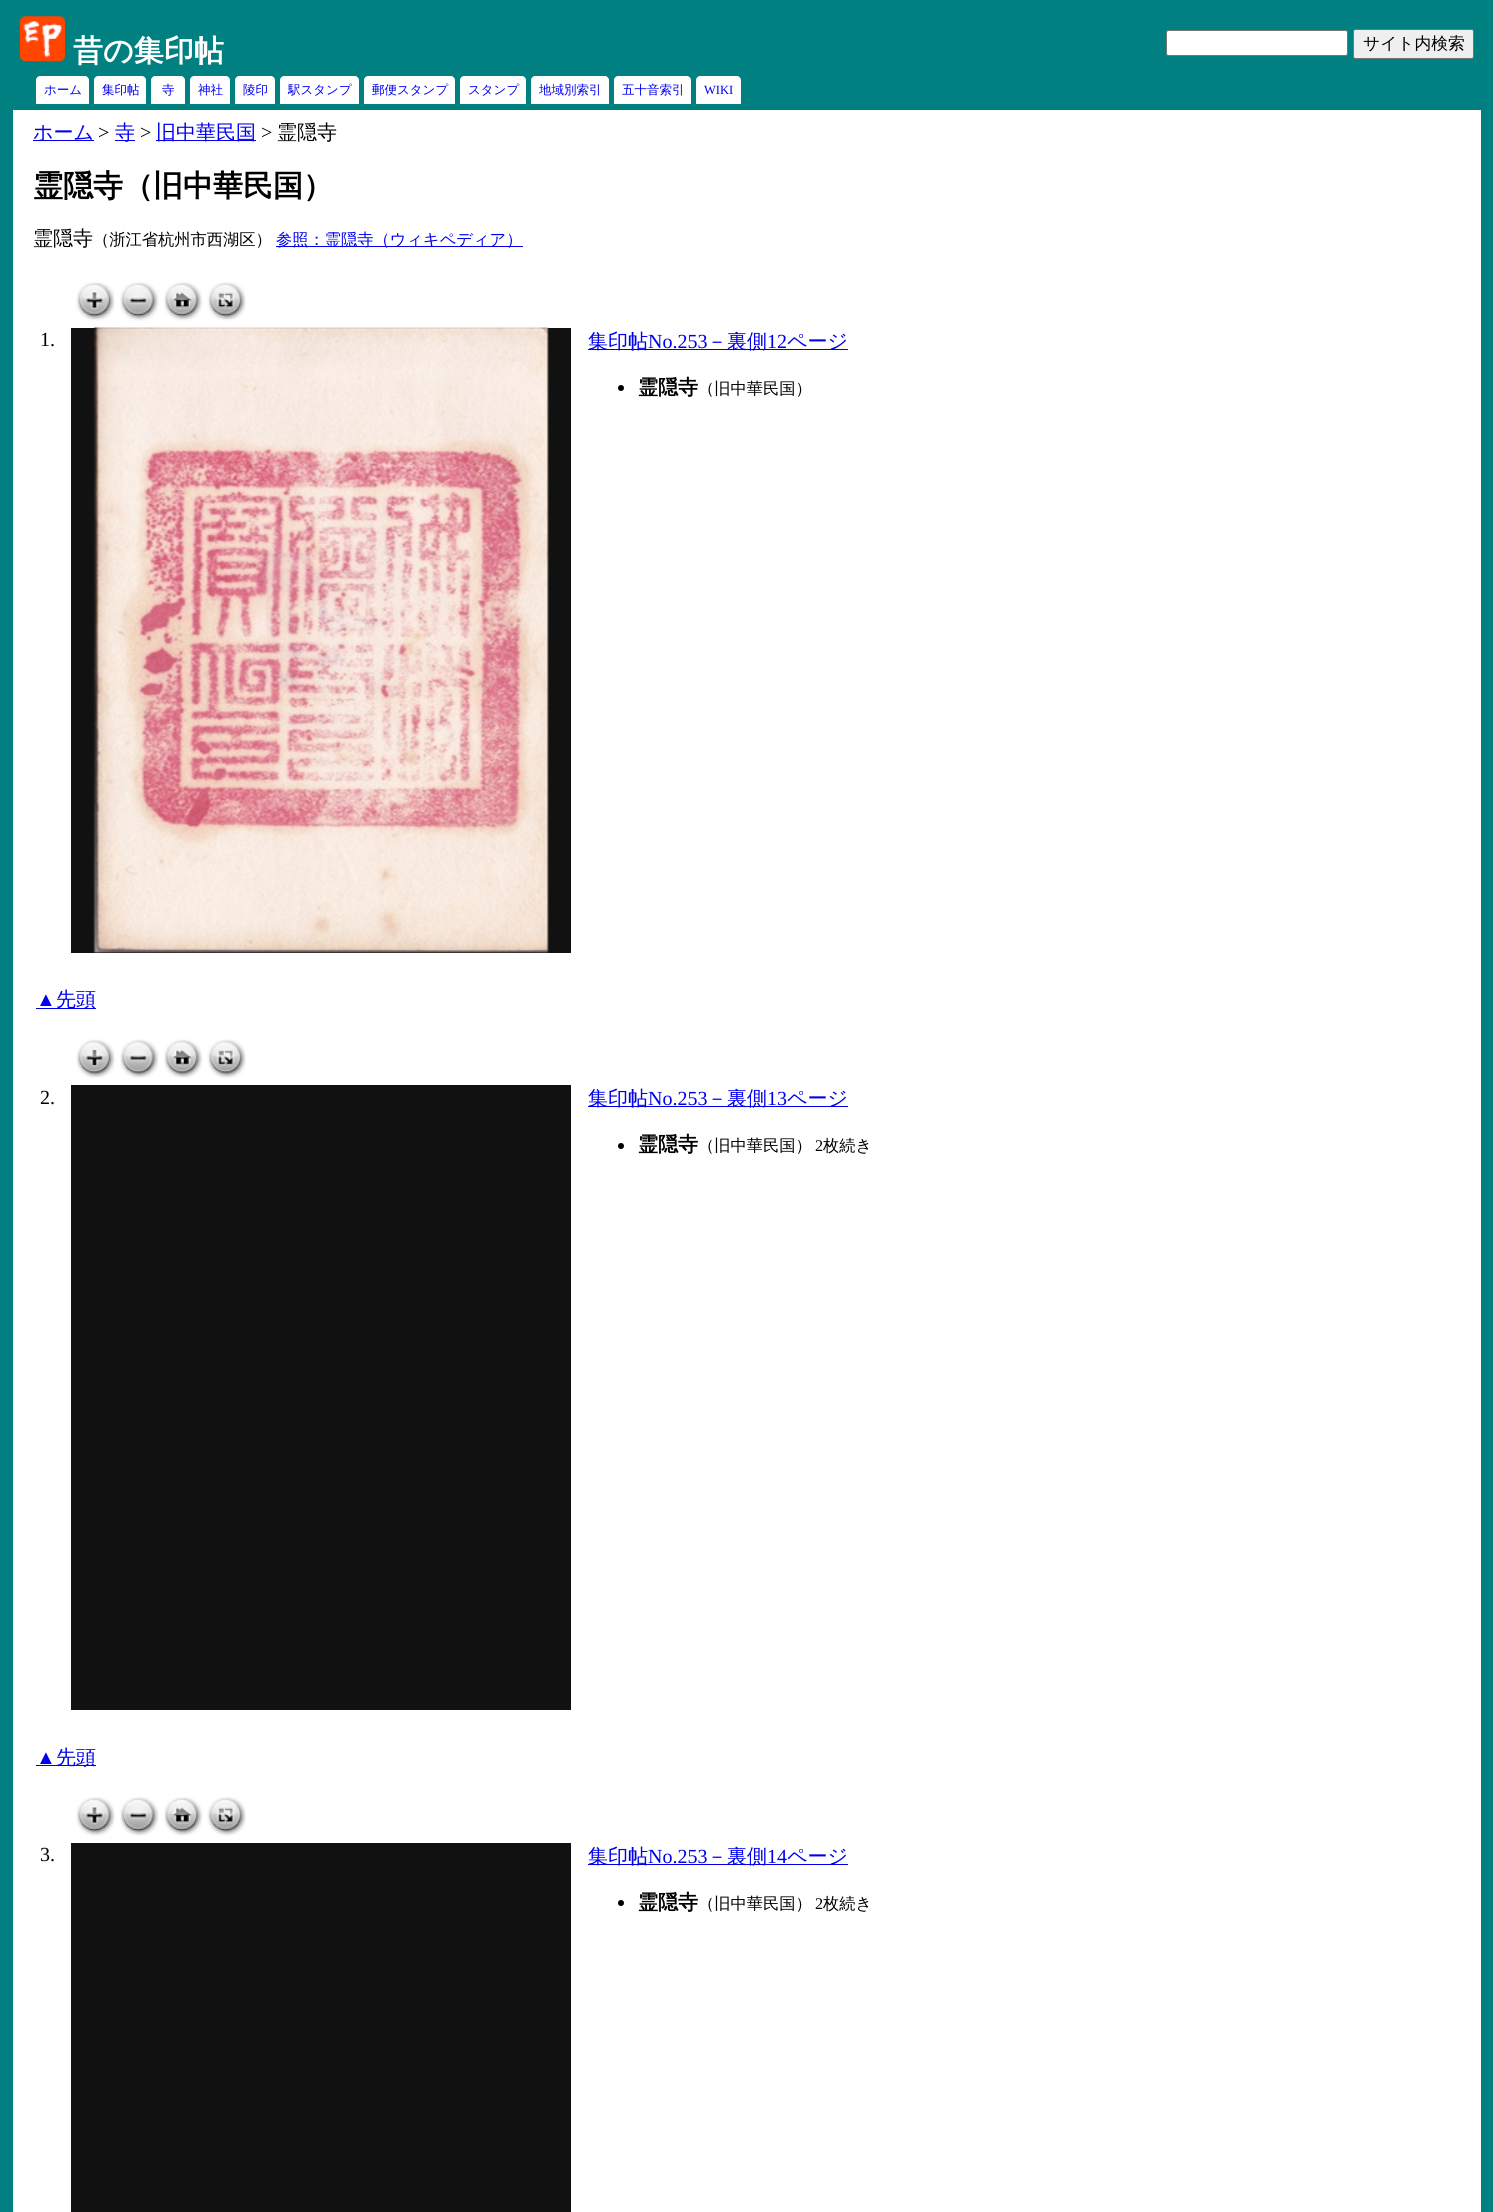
import math
import cairo

surface = cairo.ImageSurface(cairo.FORMAT_RGB24, 1493, 2212)
ctx = cairo.Context(surface)
options = cairo.FontOptions()
options.set_hint_metrics(cairo.HINT_METRICS_OFF)
options.set_hint_style(cairo.HINT_STYLE_NONE)
ctx.set_font_options(options)
ctx.set_miter_limit(4)


def set_color(code):
    ctx.set_source_rgb(*(v / 255 for v in bytes.fromhex(code[-6:])))


def draw_text(x, y, s, family, size, color, bold=False, italic=False):
    ctx.select_font_face(family, cairo.FONT_SLANT_ITALIC if italic else cairo.FONT_SLANT_NORMAL, cairo.FONT_WEIGHT_BOLD if bold else cairo.FONT_WEIGHT_NORMAL)
    ctx.set_font_size(size)
    set_color(color)
    ctx.move_to(x, y)
    ctx.show_text(s)


def fill_rect(x, y, w, h, color):
    set_color(color)
    ctx.rectangle(x, y, w, h)
    ctx.fill()


def rounded_rect(x, y, w, h, r):
    ctx.new_sub_path()
    for i, (u, v) in enumerate([(x + w - r, y + h - r), (x + r, y + h - r), (x + r, y + r), (x + w - r, y + r)]):
        ctx.arc(u, v, r, i * math.pi / 2, (i + 1) * math.pi / 2)
    ctx.close_path()


def draw_image(path, x, y, w, h):
    ctx.save()
    ctx.set_source_surface(cairo.ImageSurface.create_from_png(path), x, y)
    ctx.rectangle(x, y, w, h)
    ctx.fill()
    ctx.restore()


set_color("#008080")
ctx.paint()
draw_image("assets/img1.png", 20, 16, 45, 46)
draw_text(73, 61, "昔の集印帖", "WenQuanYi Zen Hei", 30, "#ffffff", bold=True)
rounded_rect(1166.5, 30.5, 181, 25, 2)
ctx.fill_preserve()
set_color("#767676")
ctx.set_line_width(1)
ctx.stroke()
set_color("#efefef")
rounded_rect(1353.5, 29.5, 120, 29, 2)
ctx.fill_preserve()
set_color("#767676")
ctx.stroke()
draw_text(1363, 49, "サイト内検索", "WenQuanYi Zen Hei Medium", 16.75, "#000000")
set_color("#ffffff")
ctx.new_path()
ctx.move_to(40, 76)
ctx.line_to(85, 76)
ctx.curve_to(87, 76, 89, 78, 89, 80)
ctx.line_to(89, 104)
ctx.line_to(36, 104)
ctx.line_to(36, 80)
ctx.curve_to(36, 78, 38, 76, 40, 76)
ctx.close_path()
ctx.fill()
draw_text(44, 94, "ホーム", "WenQuanYi Zen Hei Medium", 12.5, "#0000ee")
set_color("#ffffff")
ctx.new_path()
ctx.move_to(98, 76)
ctx.line_to(142, 76)
ctx.curve_to(144, 76, 146, 78, 146, 80)
ctx.line_to(146, 104)
ctx.line_to(94, 104)
ctx.line_to(94, 80)
ctx.curve_to(94, 78, 96, 76, 98, 76)
ctx.close_path()
ctx.fill()
draw_text(102, 94, "集印帖", "WenQuanYi Zen Hei Medium", 12.5, "#0000ee")
set_color("#ffffff")
ctx.new_path()
ctx.move_to(155, 76)
ctx.line_to(181, 76)
ctx.curve_to(183, 76, 185, 78, 185, 80)
ctx.line_to(185, 104)
ctx.line_to(151, 104)
ctx.line_to(151, 80)
ctx.curve_to(151, 78, 153, 76, 155, 76)
ctx.close_path()
ctx.fill()
draw_text(162, 94, "寺", "WenQuanYi Zen Hei Medium", 12.5, "#0000ee")
set_color("#ffffff")
ctx.new_path()
ctx.move_to(194, 76)
ctx.line_to(226, 76)
ctx.curve_to(228, 76, 230, 78, 230, 80)
ctx.line_to(230, 104)
ctx.line_to(190, 104)
ctx.line_to(190, 80)
ctx.curve_to(190, 78, 192, 76, 194, 76)
ctx.close_path()
ctx.fill()
draw_text(198, 94, "神社", "WenQuanYi Zen Hei Medium", 12.5, "#0000ee")
set_color("#ffffff")
ctx.new_path()
ctx.move_to(239, 76)
ctx.line_to(271, 76)
ctx.curve_to(273, 76, 275, 78, 275, 80)
ctx.line_to(275, 104)
ctx.line_to(235, 104)
ctx.line_to(235, 80)
ctx.curve_to(235, 78, 237, 76, 239, 76)
ctx.close_path()
ctx.fill()
draw_text(243, 94, "陵印", "WenQuanYi Zen Hei Medium", 12.5, "#0000ee")
set_color("#ffffff")
ctx.new_path()
ctx.move_to(284, 76)
ctx.line_to(355, 76)
ctx.curve_to(357, 76, 359, 78, 359, 80)
ctx.line_to(359, 104)
ctx.line_to(280, 104)
ctx.line_to(280, 80)
ctx.curve_to(280, 78, 282, 76, 284, 76)
ctx.close_path()
ctx.fill()
draw_text(288, 94, "駅スタンプ", "WenQuanYi Zen Hei Medium", 12.5, "#0000ee")
set_color("#ffffff")
ctx.new_path()
ctx.move_to(368, 76)
ctx.line_to(451, 76)
ctx.curve_to(453, 76, 455, 78, 455, 80)
ctx.line_to(455, 104)
ctx.line_to(364, 104)
ctx.line_to(364, 80)
ctx.curve_to(364, 78, 366, 76, 368, 76)
ctx.close_path()
ctx.fill()
draw_text(372, 94, "郵便スタンプ", "WenQuanYi Zen Hei Medium", 12.5, "#0000ee")
set_color("#ffffff")
ctx.new_path()
ctx.move_to(464, 76)
ctx.line_to(522, 76)
ctx.curve_to(524, 76, 526, 78, 526, 80)
ctx.line_to(526, 104)
ctx.line_to(460, 104)
ctx.line_to(460, 80)
ctx.curve_to(460, 78, 462, 76, 464, 76)
ctx.close_path()
ctx.fill()
draw_text(468, 94, "スタンプ", "WenQuanYi Zen Hei Medium", 12.5, "#0000ee")
set_color("#ffffff")
ctx.new_path()
ctx.move_to(535, 76)
ctx.line_to(605, 76)
ctx.curve_to(607, 76, 609, 78, 609, 80)
ctx.line_to(609, 104)
ctx.line_to(531, 104)
ctx.line_to(531, 80)
ctx.curve_to(531, 78, 533, 76, 535, 76)
ctx.close_path()
ctx.fill()
draw_text(539, 94, "地域別索引", "WenQuanYi Zen Hei Medium", 12.5, "#0000ee")
set_color("#ffffff")
ctx.new_path()
ctx.move_to(618, 76)
ctx.line_to(687, 76)
ctx.curve_to(689, 76, 691, 78, 691, 80)
ctx.line_to(691, 104)
ctx.line_to(614, 104)
ctx.line_to(614, 80)
ctx.curve_to(614, 78, 616, 76, 618, 76)
ctx.close_path()
ctx.fill()
draw_text(622, 94, "五十音索引", "WenQuanYi Zen Hei Medium", 12.5, "#0000ee")
set_color("#ffffff")
ctx.new_path()
ctx.move_to(700, 76)
ctx.line_to(737, 76)
ctx.curve_to(739, 76, 741, 78, 741, 80)
ctx.line_to(741, 104)
ctx.line_to(696, 104)
ctx.line_to(696, 80)
ctx.curve_to(696, 78, 698, 76, 700, 76)
ctx.close_path()
ctx.fill()
draw_text(704, 94, "WIKI", "Liberation Serif", 12.5, "#0000ee")
fill_rect(13, 110, 1468, 2102, "#ffffff")
fill_rect(33, 140, 61, 1, "#0000ee")
draw_text(33, 139, "ホーム", "WenQuanYi Zen Hei Medium", 20, "#0000ee")
draw_text(98, 139, ">", "Liberation Serif", 20, "#000000")
fill_rect(115, 140, 20, 1, "#0000ee")
draw_text(115, 139, "寺", "WenQuanYi Zen Hei Medium", 20, "#0000ee")
draw_text(140, 139, ">", "Liberation Serif", 20, "#000000")
fill_rect(156, 140, 100, 1, "#0000ee")
draw_text(156, 139, "旧中華民国", "WenQuanYi Zen Hei Medium", 20, "#0000ee")
draw_text(261, 139, ">", "Liberation Serif", 20, "#000000")
draw_text(277, 139, "霊隠寺", "WenQuanYi Zen Hei Medium", 20, "#000000")
draw_text(33, 196, "霊隠寺（旧中華民国）", "WenQuanYi Zen Hei", 30, "#000000", bold=True)
draw_text(33, 245, "霊隠寺", "WenQuanYi Zen Hei Medium", 20, "#000000")
draw_text(93, 245, "（浙江省杭州市西湖区）", "WenQuanYi Zen Hei Medium", 16.25, "#000000")
fill_rect(276, 246, 247, 1, "#0000ee")
draw_text(276, 245, "参照：霊隠寺（ウィキペディア）", "WenQuanYi Zen Hei Medium", 16.25, "#0000ee")
draw_image("assets/img2.png", 76, 282, 39, 39)
draw_image("assets/img3.png", 77, 283, 37, 36)
draw_image("assets/img4.png", 120, 282, 39, 39)
draw_image("assets/img5.png", 121, 283, 37, 36)
draw_image("assets/img6.png", 164, 282, 39, 39)
draw_image("assets/img7.png", 165, 283, 36, 36)
draw_image("assets/img8.png", 207, 282, 39, 39)
draw_image("assets/img9.png", 209, 283, 36, 36)
draw_text(40, 346, "1.", "Liberation Serif", 20, "#000000")
fill_rect(71, 328, 500, 625, "#111111")
draw_image("assets/img10.png", 93, 327, 456, 626)
fill_rect(588, 349, 260, 1, "#0000ee")
draw_text(588, 348, "集印帖", "WenQuanYi Zen Hei Medium", 20, "#0000ee")
draw_text(648, 348, "No.253", "Liberation Serif", 20, "#0000ee")
draw_text(707, 348, "－裏側", "WenQuanYi Zen Hei Medium", 20, "#0000ee")
draw_text(767, 348, "12", "Liberation Serif", 20, "#0000ee")
draw_text(787, 348, "ページ", "WenQuanYi Zen Hei Medium", 20, "#0000ee")
set_color("#000000")
ctx.new_path()
ctx.arc(621, 388, 3, 0, 2 * math.pi)
ctx.fill()
draw_text(638, 394, "霊隠寺", "WenQuanYi Zen Hei", 20, "#000000", bold=True)
draw_text(698, 394, "（旧中華民国）", "WenQuanYi Zen Hei Medium", 16.25, "#000000")
draw_text(36, 1006, "▲", "Liberation Serif", 20, "#0000ee")
fill_rect(36, 1008, 60, 1, "#0000ee")
draw_text(56, 1006, "先頭", "WenQuanYi Zen Hei Medium", 20, "#0000ee")
draw_image("assets/img11.png", 76, 1039, 39, 39)
draw_image("assets/img12.png", 77, 1040, 37, 37)
draw_image("assets/img13.png", 120, 1039, 39, 39)
draw_image("assets/img14.png", 121, 1040, 37, 37)
draw_image("assets/img15.png", 164, 1039, 39, 39)
draw_image("assets/img16.png", 165, 1040, 37, 37)
draw_image("assets/img17.png", 207, 1039, 39, 39)
draw_image("assets/img18.png", 209, 1040, 36, 37)
draw_text(40, 1104, "2.", "Liberation Serif", 20, "#000000")
fill_rect(71, 1085, 500, 625, "#111111")
fill_rect(588, 1106, 260, 1, "#0000ee")
draw_text(588, 1105, "集印帖", "WenQuanYi Zen Hei Medium", 20, "#0000ee")
draw_text(648, 1105, "No.253", "Liberation Serif", 20, "#0000ee")
draw_text(707, 1105, "－裏側", "WenQuanYi Zen Hei Medium", 20, "#0000ee")
draw_text(767, 1105, "13", "Liberation Serif", 20, "#0000ee")
draw_text(787, 1105, "ページ", "WenQuanYi Zen Hei Medium", 20, "#0000ee")
set_color("#000000")
ctx.new_path()
ctx.arc(621, 1146, 3, 0, 2 * math.pi)
ctx.fill()
draw_text(638, 1151, "霊隠寺", "WenQuanYi Zen Hei", 20, "#000000", bold=True)
draw_text(698, 1151, "（旧中華民国）", "WenQuanYi Zen Hei Medium", 16.25, "#000000")
draw_text(815, 1151, "2", "Liberation Serif", 16.25, "#000000")
draw_text(823, 1151, "枚続き", "WenQuanYi Zen Hei Medium", 16.25, "#000000")
draw_text(36, 1764, "▲", "Liberation Serif", 20, "#0000ee")
fill_rect(36, 1765, 60, 1, "#0000ee")
draw_text(56, 1764, "先頭", "WenQuanYi Zen Hei Medium", 20, "#0000ee")
draw_image("assets/img19.png", 76, 1797, 39, 39)
draw_image("assets/img20.png", 77, 1798, 37, 37)
draw_image("assets/img21.png", 120, 1797, 39, 39)
draw_image("assets/img22.png", 121, 1798, 37, 37)
draw_image("assets/img23.png", 164, 1797, 39, 39)
draw_image("assets/img24.png", 165, 1798, 37, 37)
draw_image("assets/img25.png", 207, 1797, 39, 39)
draw_image("assets/img26.png", 208, 1798, 37, 37)
draw_text(40, 1861, "3.", "Liberation Serif", 20, "#000000")
fill_rect(71, 1843, 500, 369, "#111111")
fill_rect(588, 1864, 260, 1, "#0000ee")
draw_text(588, 1863, "集印帖", "WenQuanYi Zen Hei Medium", 20, "#0000ee")
draw_text(648, 1863, "No.253", "Liberation Serif", 20, "#0000ee")
draw_text(707, 1863, "－裏側", "WenQuanYi Zen Hei Medium", 20, "#0000ee")
draw_text(767, 1863, "14", "Liberation Serif", 20, "#0000ee")
draw_text(787, 1863, "ページ", "WenQuanYi Zen Hei Medium", 20, "#0000ee")
set_color("#000000")
ctx.new_path()
ctx.arc(621, 1903, 3, 0, 2 * math.pi)
ctx.fill()
draw_text(638, 1909, "霊隠寺", "WenQuanYi Zen Hei", 20, "#000000", bold=True)
draw_text(698, 1909, "（旧中華民国）", "WenQuanYi Zen Hei Medium", 16.25, "#000000")
draw_text(815, 1909, "2", "Liberation Serif", 16.25, "#000000")
draw_text(823, 1909, "枚続き", "WenQuanYi Zen Hei Medium", 16.25, "#000000")
surface.write_to_png("output.png")
